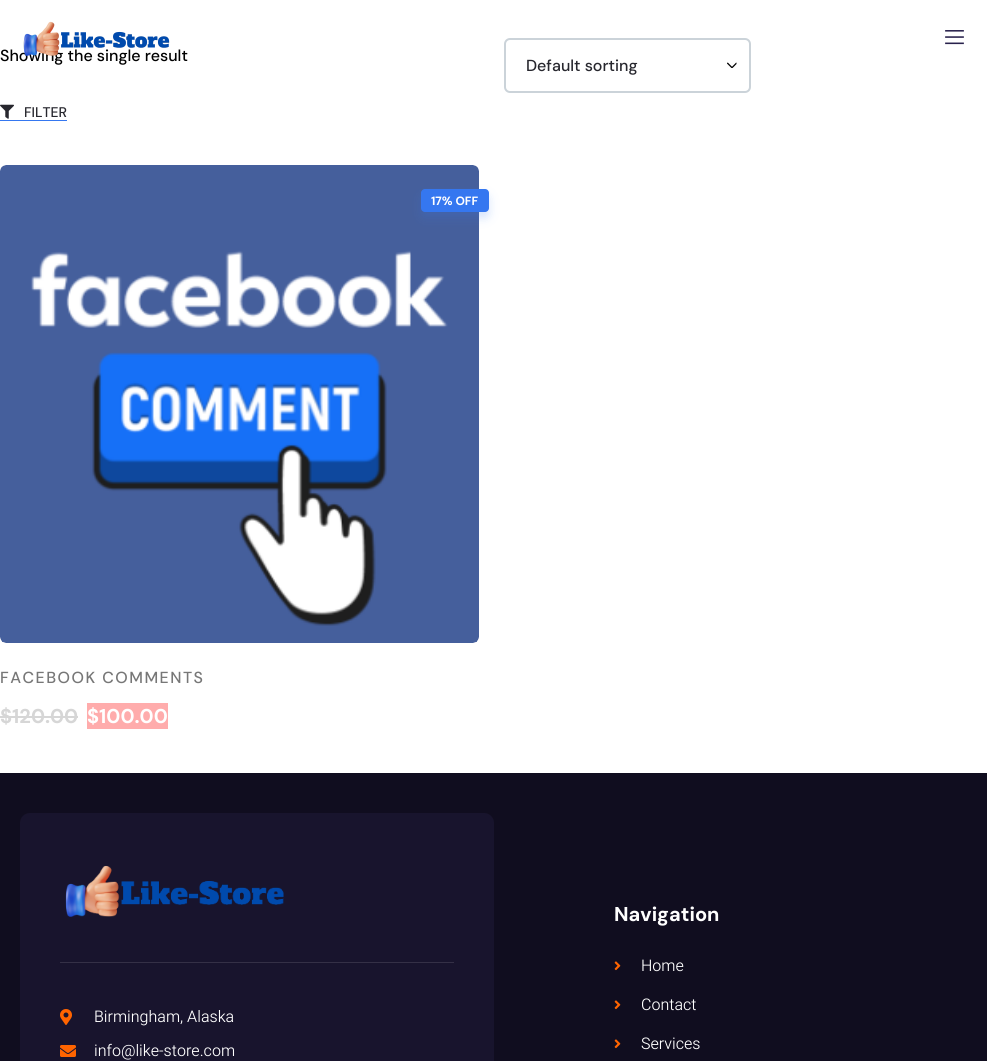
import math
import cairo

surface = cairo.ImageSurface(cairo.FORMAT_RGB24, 987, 1061)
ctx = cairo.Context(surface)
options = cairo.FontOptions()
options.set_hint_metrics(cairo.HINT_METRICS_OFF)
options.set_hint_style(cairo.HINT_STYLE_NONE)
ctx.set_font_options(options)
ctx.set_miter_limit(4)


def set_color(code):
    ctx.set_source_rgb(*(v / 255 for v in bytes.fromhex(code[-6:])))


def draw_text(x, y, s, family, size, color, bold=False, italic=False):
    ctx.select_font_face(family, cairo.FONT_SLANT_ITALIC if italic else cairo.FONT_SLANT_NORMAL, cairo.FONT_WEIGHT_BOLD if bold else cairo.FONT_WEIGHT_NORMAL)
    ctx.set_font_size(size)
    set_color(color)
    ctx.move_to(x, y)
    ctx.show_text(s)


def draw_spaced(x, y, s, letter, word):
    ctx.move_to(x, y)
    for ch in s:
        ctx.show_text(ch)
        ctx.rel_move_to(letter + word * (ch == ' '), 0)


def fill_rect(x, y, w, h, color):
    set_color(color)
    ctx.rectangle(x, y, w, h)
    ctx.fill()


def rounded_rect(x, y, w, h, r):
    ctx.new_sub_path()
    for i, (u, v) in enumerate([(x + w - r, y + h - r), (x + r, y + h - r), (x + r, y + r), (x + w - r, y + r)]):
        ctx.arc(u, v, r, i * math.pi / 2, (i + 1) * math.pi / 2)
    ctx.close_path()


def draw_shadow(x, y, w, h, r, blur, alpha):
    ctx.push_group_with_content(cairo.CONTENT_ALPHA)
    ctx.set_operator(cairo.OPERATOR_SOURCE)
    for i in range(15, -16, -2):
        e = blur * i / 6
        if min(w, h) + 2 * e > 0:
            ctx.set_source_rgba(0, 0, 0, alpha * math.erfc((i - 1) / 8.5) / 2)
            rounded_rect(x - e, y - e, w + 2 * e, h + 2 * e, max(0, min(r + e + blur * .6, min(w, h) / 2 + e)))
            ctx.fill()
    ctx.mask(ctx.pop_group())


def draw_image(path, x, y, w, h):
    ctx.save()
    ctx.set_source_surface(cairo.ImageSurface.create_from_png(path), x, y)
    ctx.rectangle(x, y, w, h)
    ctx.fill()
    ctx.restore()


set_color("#ffffff")
ctx.paint()
draw_text(0, 61, "Showing the single result", "DM Sans Medium", 16, "#000000")
draw_image("assets/img1.png", 23, 21, 147, 35)
draw_image("assets/img2.png", 945, 30, 19, 15)
draw_image("assets/img3.png", 727, 62, 10, 6)
rounded_rect(505, 39, 245, 53, 5)
set_color("#cbd3d9")
ctx.stroke()
draw_text(526, 71, "Default sorting", "DM Sans Medium", 16, "#27272e")
draw_image("assets/img4.png", 0, 104, 14, 15)
draw_text(24, 117, "FILTER", "DM Sans Medium", 14, "#27272e")
fill_rect(0, 120, 67, 1, "#3577f0")
set_color("#f7f7f7")
rounded_rect(0, 165, 479, 478, 6)
ctx.fill()
draw_image("assets/img5.png", 0, 165, 479, 478)
set_color("#3577f0")
draw_shadow(421, 195, 68, 23, 4, 5, 0.2)
set_color("#3577f0")
rounded_rect(421, 189, 68, 23, 4)
ctx.fill()
draw_text(431, 205, "17% OFF", "DM Sans", 12, "#ffffff", bold=True)
ctx.select_font_face("DM Sans Medium")
ctx.set_font_size(16)
set_color("#777777")
draw_spaced(0, 683, "FACEBOOK COMMENTS", 1.5, 0)
draw_text(0, 723, "$120.00", "DM Sans", 20, "#d6d6d6", bold=True)
fill_rect(0, 716, 78, 2, "#d6d6d6")
fill_rect(87, 703, 81, 26, "#ffacac")
draw_text(87, 723, "$100.00", "DM Sans", 20, "#ffffff", bold=True)
fill_rect(0, 773, 987, 288, "#100d1f")
set_color("#18142d")
rounded_rect(20, 813, 474, 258, 10)
ctx.fill()
draw_image("assets/img6.png", 65, 865, 219, 52)
fill_rect(60, 962, 394, 1, "#343046")
draw_image("assets/img7.png", 60, 1009, 12, 16)
draw_text(94, 1022, "Birmingham, Alaska", "Heebo Light", 16, "#ffffff")
draw_image("assets/img8.png", 60, 1045, 16, 12)
draw_text(94, 1056, "info@like-store.com", "Heebo Light", 16, "#ffffff")
draw_text(614, 921, "Navigation", "DM Sans", 20, "#ffffff", bold=True)
draw_image("assets/img9.png", 614, 961, 7, 10)
draw_text(641, 971, "Home", "Heebo Light", 16, "#ffffff")
draw_image("assets/img9.png", 614, 1000, 7, 10)
draw_text(641, 1010, "Contact", "Heebo Light", 16, "#ffffff")
draw_image("assets/img9.png", 614, 1039, 7, 10)
draw_text(641, 1049, "Services", "Heebo Light", 16, "#ffffff")
surface.write_to_png("output.png")
